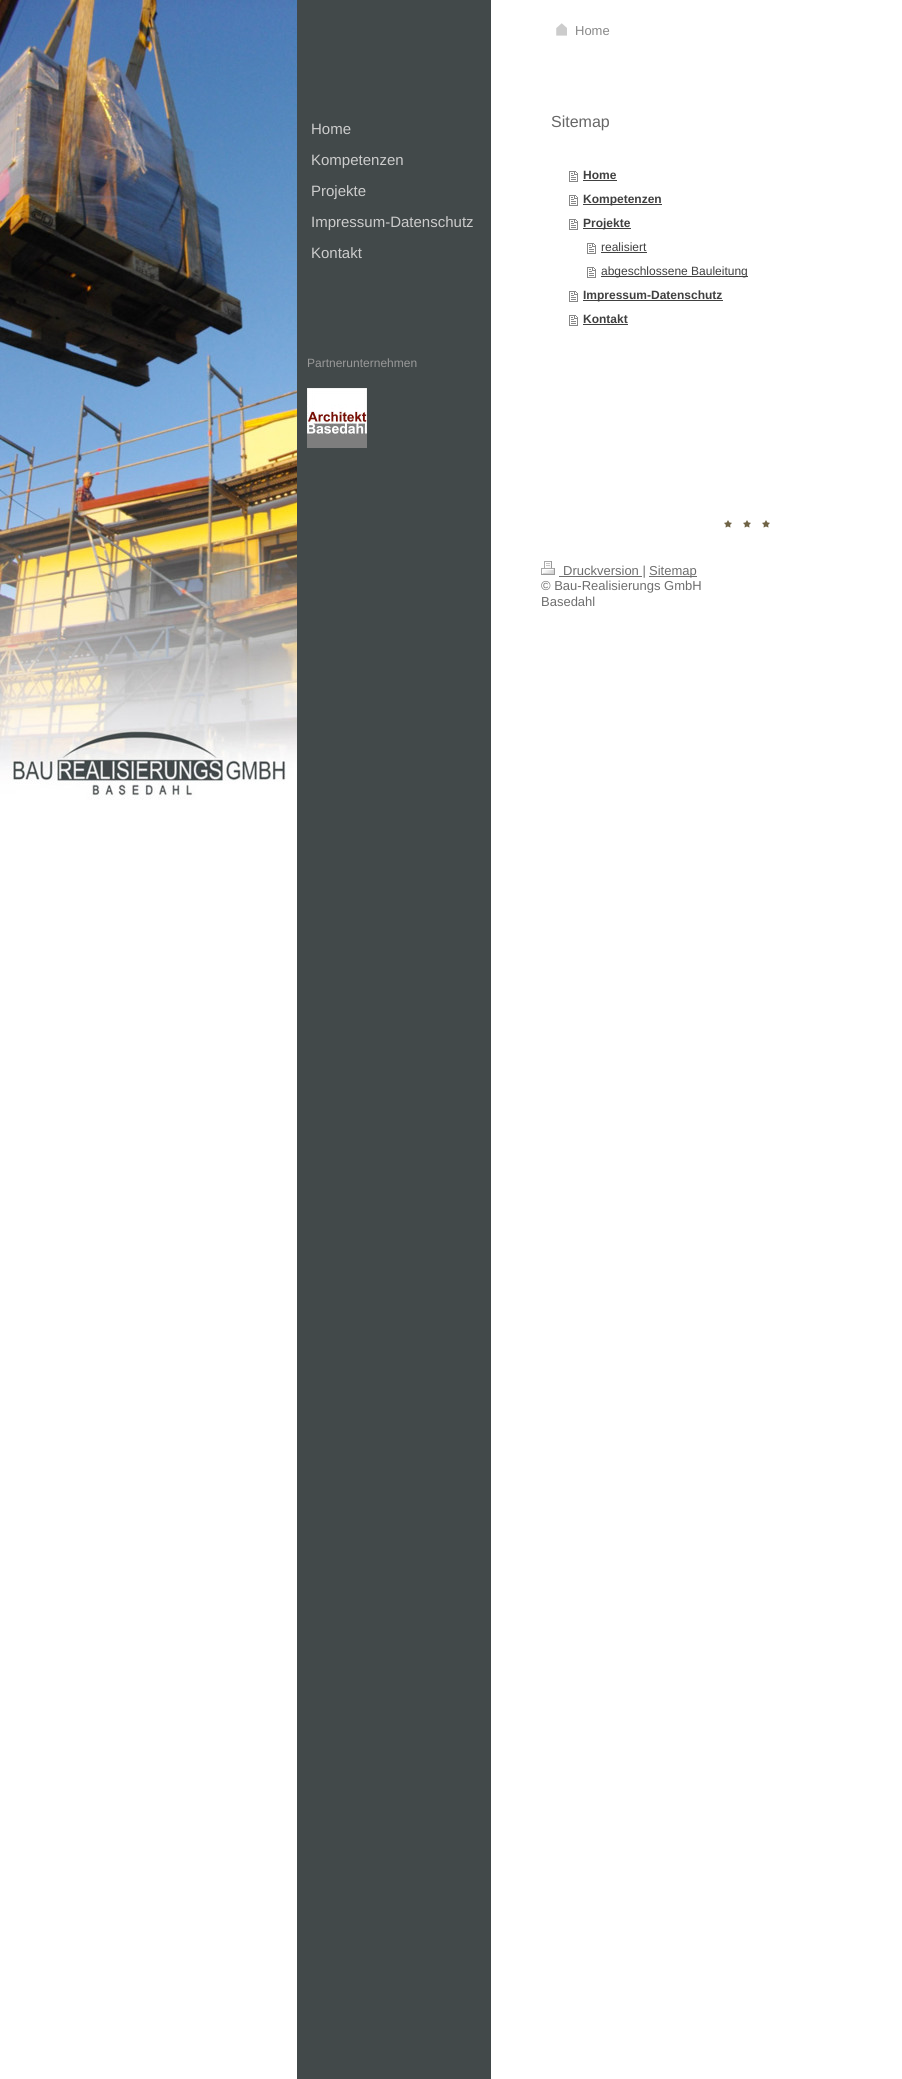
import math
import cairo

surface = cairo.ImageSurface(cairo.FORMAT_RGB24, 902, 2079)
ctx = cairo.Context(surface)
options = cairo.FontOptions()
options.set_hint_metrics(cairo.HINT_METRICS_OFF)
options.set_hint_style(cairo.HINT_STYLE_NONE)
ctx.set_font_options(options)
ctx.set_miter_limit(4)


def set_color(code):
    ctx.set_source_rgb(*(v / 255 for v in bytes.fromhex(code[-6:])))


def draw_text(x, y, s, family, size, color, bold=False, italic=False):
    ctx.select_font_face(family, cairo.FONT_SLANT_ITALIC if italic else cairo.FONT_SLANT_NORMAL, cairo.FONT_WEIGHT_BOLD if bold else cairo.FONT_WEIGHT_NORMAL)
    ctx.set_font_size(size)
    set_color(color)
    ctx.move_to(x, y)
    ctx.show_text(s)


def fill_rect(x, y, w, h, color):
    set_color(color)
    ctx.rectangle(x, y, w, h)
    ctx.fill()


def draw_image(path, x, y, w, h):
    ctx.save()
    ctx.set_source_surface(cairo.ImageSurface.create_from_png(path), x, y)
    ctx.rectangle(x, y, w, h)
    ctx.fill()
    ctx.restore()


set_color("#ffffff")
ctx.paint()
draw_image("assets/img1.png", 0, 0, 297, 800)
fill_rect(297, 0, 194, 2079, "#42494a")
draw_text(311, 134, "Home", "Liberation Sans", 15, "#cccccc")
draw_text(311, 165, "Kompetenzen", "Liberation Sans", 15, "#cccccc")
draw_text(311, 196, "Projekte", "Liberation Sans", 15, "#cccccc")
draw_text(311, 227, "Impressum-Datenschutz", "Liberation Sans", 15, "#cccccc")
draw_text(311, 258, "Kontakt", "Liberation Sans", 15, "#cccccc")
draw_text(307, 367, "Partnerunternehmen", "Liberation Sans", 12, "#999999")
draw_image("assets/img2.png", 307, 388, 60, 60)
draw_image("assets/img3.png", 556, 23, 11, 13)
draw_text(575, 35, "Home", "Liberation Sans", 13, "#888888")
draw_text(551, 127, "Sitemap", "Liberation Sans", 16, "#666666")
draw_image("assets/img4.png", 569, 171, 9, 11)
draw_text(583, 179, "Home", "Liberation Sans", 12, "#404040", bold=True)
fill_rect(583, 180, 34, 1, "#404040")
draw_image("assets/img4.png", 569, 195, 9, 11)
fill_rect(583, 204, 79, 1, "#404040")
draw_text(583, 203, "Kompetenzen", "Liberation Sans", 12, "#404040", bold=True)
draw_image("assets/img4.png", 569, 219, 9, 11)
fill_rect(583, 228, 48, 1, "#404040")
draw_text(583, 227, "Projekte", "Liberation Sans", 12, "#404040", bold=True)
draw_image("assets/img4.png", 587, 243, 9, 11)
draw_text(601, 251, "realisiert", "Liberation Sans", 12, "#404040")
fill_rect(601, 252, 46, 1, "#404040")
draw_image("assets/img4.png", 587, 267, 9, 11)
fill_rect(601, 276, 147, 1, "#404040")
draw_text(601, 275, "abgeschlossene Bauleitung", "Liberation Sans", 12, "#404040")
draw_image("assets/img4.png", 569, 291, 9, 11)
fill_rect(583, 300, 140, 1, "#404040")
draw_text(583, 299, "Impressum-Datenschutz", "Liberation Sans", 12, "#404040", bold=True)
draw_image("assets/img4.png", 569, 315, 9, 11)
draw_text(583, 323, "Kontakt", "Liberation Sans", 12, "#404040", bold=True)
fill_rect(583, 324, 45, 1, "#404040")
draw_image("assets/img5.png", 724, 520, 46, 8)
draw_image("assets/img6.png", 541, 561, 14, 14)
fill_rect(559, 576, 83, 1, "#6e6e6e")
draw_text(563, 575, "Druckversion |", "Liberation Sans", 13, "#6e6e6e")
fill_rect(649, 576, 48, 1, "#6e6e6e")
draw_text(649, 575, "Sitemap", "Liberation Sans", 13, "#6e6e6e")
draw_text(541, 590, "© Bau-Realisierungs GmbH", "Liberation Sans", 13, "#6e6e6e")
draw_text(541, 606, "Basedahl", "Liberation Sans", 13, "#6e6e6e")
surface.write_to_png("output.png")
